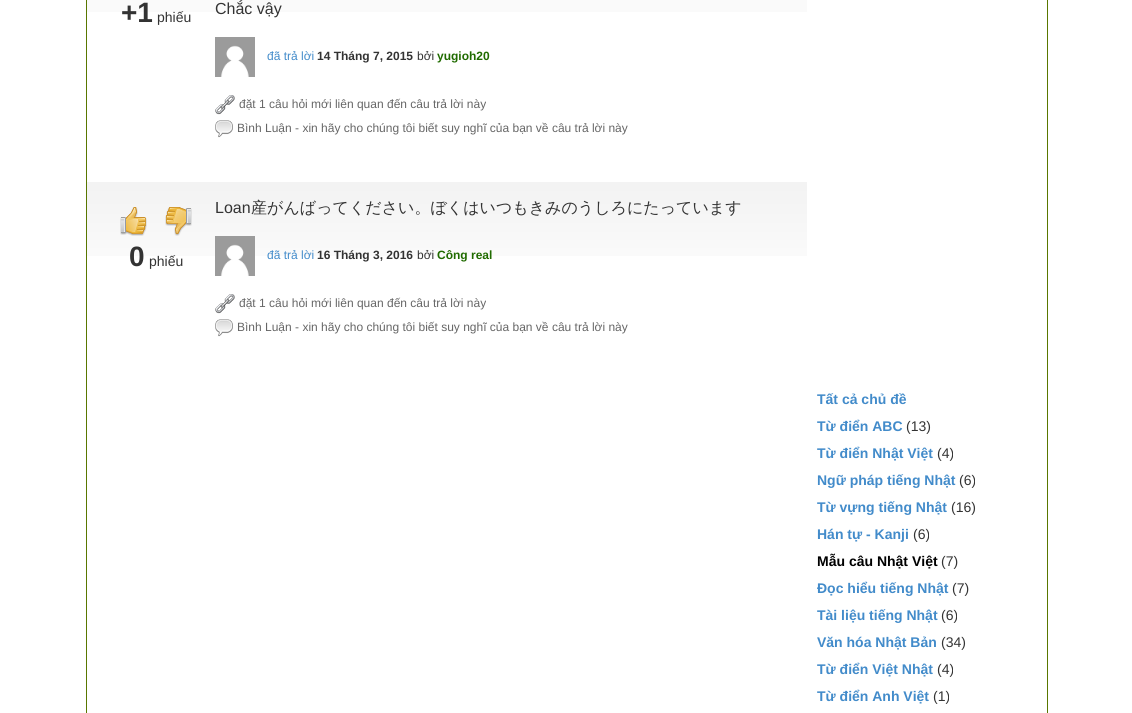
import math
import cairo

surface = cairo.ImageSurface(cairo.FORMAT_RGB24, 1132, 713)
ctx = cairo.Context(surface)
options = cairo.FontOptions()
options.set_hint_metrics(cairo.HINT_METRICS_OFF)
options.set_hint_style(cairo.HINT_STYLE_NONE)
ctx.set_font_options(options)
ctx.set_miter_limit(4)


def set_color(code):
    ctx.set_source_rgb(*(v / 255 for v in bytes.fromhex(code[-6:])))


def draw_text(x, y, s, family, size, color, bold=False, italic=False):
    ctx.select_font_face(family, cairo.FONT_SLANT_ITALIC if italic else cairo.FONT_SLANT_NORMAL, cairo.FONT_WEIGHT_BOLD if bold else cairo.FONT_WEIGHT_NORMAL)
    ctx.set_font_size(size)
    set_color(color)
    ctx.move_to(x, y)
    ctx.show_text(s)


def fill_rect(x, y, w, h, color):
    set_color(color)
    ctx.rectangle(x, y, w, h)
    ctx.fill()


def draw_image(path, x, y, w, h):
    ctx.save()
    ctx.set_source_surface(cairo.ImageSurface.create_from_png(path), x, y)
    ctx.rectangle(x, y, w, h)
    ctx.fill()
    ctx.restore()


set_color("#ffffff")
ctx.paint()
ctx.rectangle(86.5, -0.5, 961, 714)
set_color("#597700")
ctx.set_line_width(1)
ctx.stroke()
fill_rect(87, 0, 720, 12, "#fafafa")
draw_text(121, 22, "+1", "Liberation Sans", 28, "#333333", bold=True)
draw_text(157, 22, "phiếu", "Liberation Sans", 14, "#333333")
draw_text(215, 14, "Chắc vậy", "Liberation Sans", 16, "#333333")
draw_image("assets/img1.png", 215, 37, 40, 40)
draw_text(267, 60, "đã trả lời", "Liberation Sans", 12, "#428bca")
draw_text(317, 60, "14 Tháng 7, 2015", "Liberation Sans", 12, "#333333", bold=True)
draw_text(417, 60, "bởi", "Liberation Sans", 12, "#333333")
draw_text(437, 60, "yugioh20", "Liberation Sans", 12, "#206b00", bold=True)
draw_image("assets/img2.png", 215, 95, 20, 20)
draw_text(239, 108, "đặt 1 câu hỏi mới liên quan đến câu trả lời này", "Liberation Sans", 12, "#666666")
draw_image("assets/img3.png", 215, 120, 18, 18)
draw_text(237, 132, "Bình Luận - xin hãy cho chúng tôi biết suy nghĩ của bạn về câu trả lời này", "Liberation Sans", 12, "#666666")
draw_image("assets/img4.png", 87, 182, 720, 74)
draw_image("assets/img5.png", 120, 207, 27, 29)
draw_image("assets/img6.png", 165, 207, 27, 29)
draw_text(129, 266, "0", "Liberation Sans", 28, "#333333", bold=True)
draw_text(149, 266, "phiếu", "Liberation Sans", 14, "#333333")
draw_text(215, 213, "Loan", "Liberation Sans", 16, "#333333")
draw_text(251, 213, "産がんばってください。ぼくはいつもきみのうしろにたっています", "WenQuanYi Zen Hei Medium", 16, "#333333")
draw_image("assets/img1.png", 215, 236, 40, 40)
draw_text(267, 259, "đã trả lời", "Liberation Sans", 12, "#428bca")
draw_text(317, 259, "16 Tháng 3, 2016", "Liberation Sans", 12, "#333333", bold=True)
draw_text(417, 259, "bởi", "Liberation Sans", 12, "#333333")
draw_text(437, 259, "Công real", "Liberation Sans", 12, "#206b00", bold=True)
draw_image("assets/img2.png", 215, 294, 20, 20)
draw_text(239, 307, "đặt 1 câu hỏi mới liên quan đến câu trả lời này", "Liberation Sans", 12, "#666666")
draw_image("assets/img3.png", 215, 319, 18, 18)
draw_text(237, 331, "Bình Luận - xin hãy cho chúng tôi biết suy nghĩ của bạn về câu trả lời này", "Liberation Sans", 12, "#666666")
draw_text(817, 404, "Tất cả chủ đề", "Liberation Sans", 14, "#428bca", bold=True)
draw_text(817, 431, "Từ điển ABC", "Liberation Sans", 14, "#428bca", bold=True)
draw_text(906, 431, "(13)", "Liberation Sans", 14, "#333333")
draw_text(817, 458, "Từ điển Nhật Việt", "Liberation Sans", 14, "#428bca", bold=True)
draw_text(937, 458, "(4)", "Liberation Sans", 14, "#333333")
draw_text(817, 485, "Ngữ pháp tiếng Nhật", "Liberation Sans", 14, "#428bca", bold=True)
draw_text(959, 485, "(6)", "Liberation Sans", 14, "#333333")
draw_text(817, 512, "Từ vựng tiếng Nhật", "Liberation Sans", 14, "#428bca", bold=True)
draw_text(951, 512, "(16)", "Liberation Sans", 14, "#333333")
draw_text(817, 539, "Hán tự - Kanji", "Liberation Sans", 14, "#428bca", bold=True)
draw_text(913, 539, "(6)", "Liberation Sans", 14, "#333333")
draw_text(817, 566, "Mẫu câu Nhật Việt", "Liberation Sans", 14, "#000000", bold=True)
draw_text(941, 566, "(7)", "Liberation Sans", 14, "#333333")
draw_text(817, 593, "Đọc hiểu tiếng Nhật", "Liberation Sans", 14, "#428bca", bold=True)
draw_text(952, 593, "(7)", "Liberation Sans", 14, "#333333")
draw_text(817, 620, "Tài liệu tiếng Nhật", "Liberation Sans", 14, "#428bca", bold=True)
draw_text(941, 620, "(6)", "Liberation Sans", 14, "#333333")
draw_text(817, 647, "Văn hóa Nhật Bản", "Liberation Sans", 14, "#428bca", bold=True)
draw_text(941, 647, "(34)", "Liberation Sans", 14, "#333333")
draw_text(817, 674, "Từ điển Việt Nhật", "Liberation Sans", 14, "#428bca", bold=True)
draw_text(937, 674, "(4)", "Liberation Sans", 14, "#333333")
draw_text(817, 701, "Từ điển Anh Việt", "Liberation Sans", 14, "#428bca", bold=True)
draw_text(933, 701, "(1)", "Liberation Sans", 14, "#333333")
surface.write_to_png("output.png")
